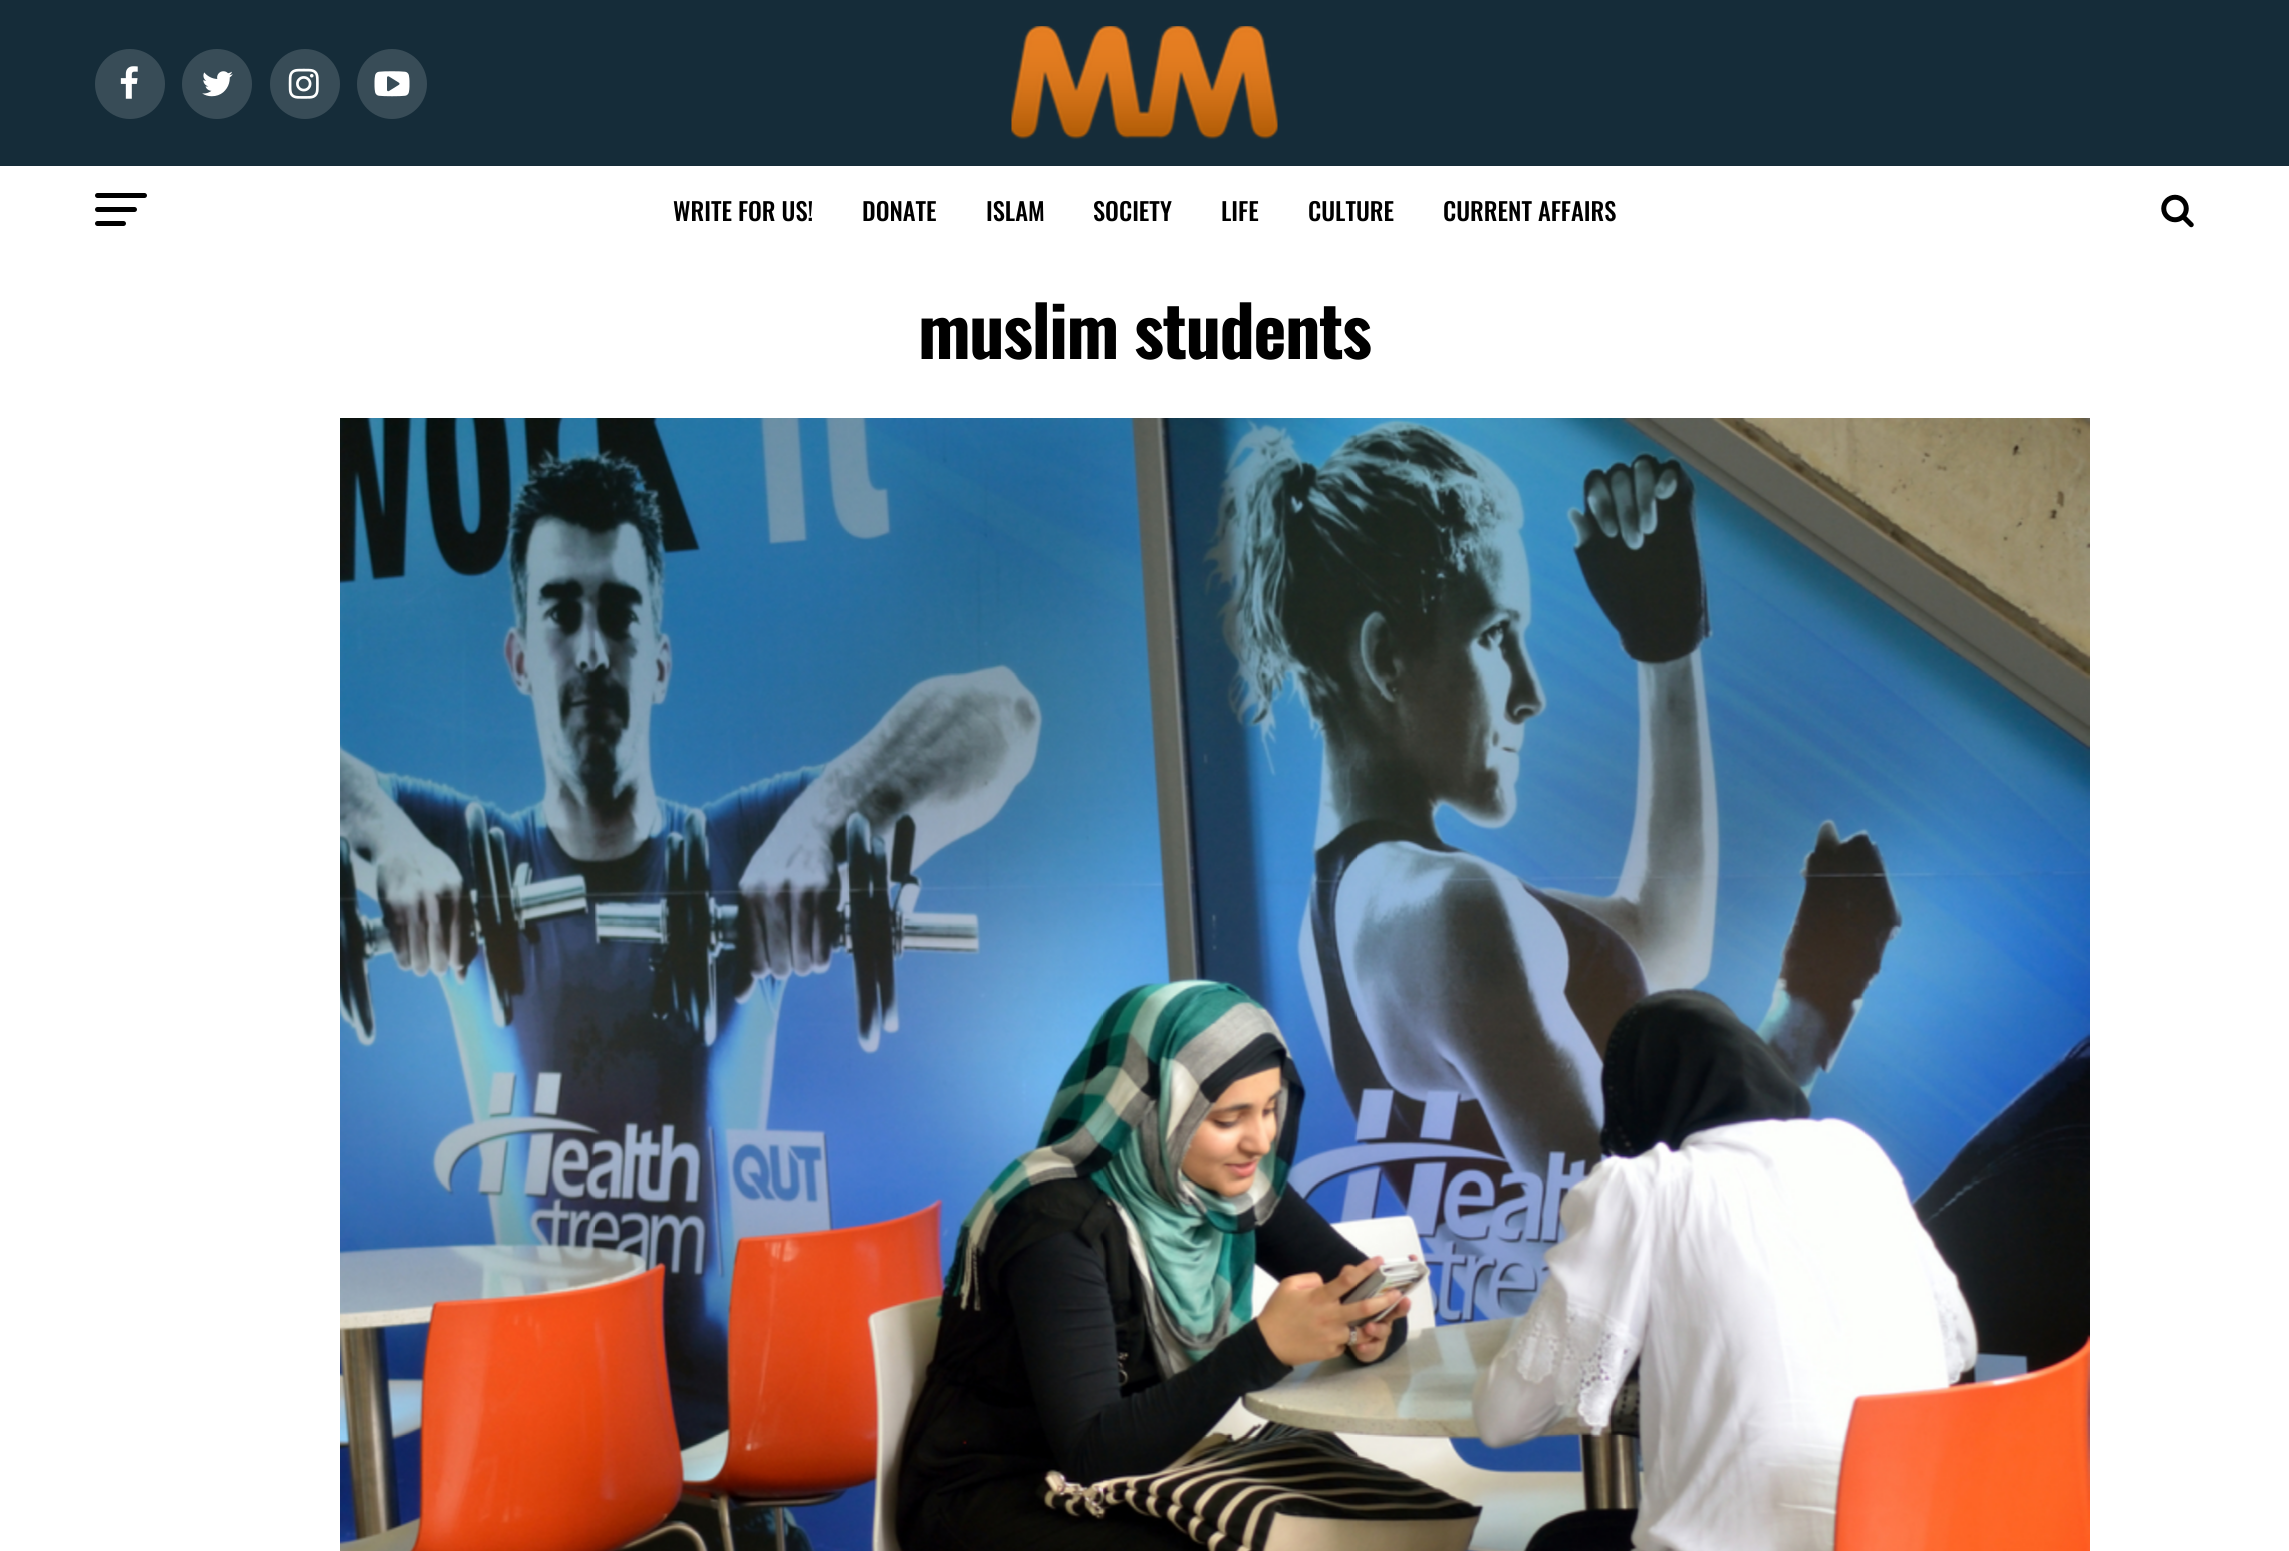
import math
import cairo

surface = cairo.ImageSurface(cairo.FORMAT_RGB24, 2289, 1551)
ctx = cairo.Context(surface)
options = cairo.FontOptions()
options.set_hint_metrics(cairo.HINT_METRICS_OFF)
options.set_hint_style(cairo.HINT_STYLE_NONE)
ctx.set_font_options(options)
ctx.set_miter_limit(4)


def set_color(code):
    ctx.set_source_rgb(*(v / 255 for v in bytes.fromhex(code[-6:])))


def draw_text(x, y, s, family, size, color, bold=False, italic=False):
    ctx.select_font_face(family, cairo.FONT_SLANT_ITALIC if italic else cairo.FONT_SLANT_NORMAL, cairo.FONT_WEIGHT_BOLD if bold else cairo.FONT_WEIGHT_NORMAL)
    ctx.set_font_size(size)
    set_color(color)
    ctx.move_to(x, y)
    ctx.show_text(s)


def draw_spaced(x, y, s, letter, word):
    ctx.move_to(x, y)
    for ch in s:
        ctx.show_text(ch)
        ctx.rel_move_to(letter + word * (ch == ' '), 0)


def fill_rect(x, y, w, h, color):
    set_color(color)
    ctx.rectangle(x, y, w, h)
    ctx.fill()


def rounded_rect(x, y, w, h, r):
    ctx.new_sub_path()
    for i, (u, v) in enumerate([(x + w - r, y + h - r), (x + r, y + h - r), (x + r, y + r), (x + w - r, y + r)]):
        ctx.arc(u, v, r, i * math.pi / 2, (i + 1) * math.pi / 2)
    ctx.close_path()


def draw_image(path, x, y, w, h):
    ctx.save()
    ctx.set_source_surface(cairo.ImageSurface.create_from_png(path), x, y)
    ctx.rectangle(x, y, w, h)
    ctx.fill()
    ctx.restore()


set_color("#ffffff")
ctx.paint()
fill_rect(0, 0, 2289, 166, "#152c39")
set_color("#384c57")
ctx.arc(130, 84, 35, 0, 2 * math.pi)
ctx.fill()
draw_image("assets/img1.png", 120, 66, 18, 33)
ctx.arc(217, 84, 35, 0, 2 * math.pi)
ctx.fill()
draw_image("assets/img2.png", 202, 71, 31, 26)
ctx.arc(305, 84, 35, 0, 2 * math.pi)
ctx.fill()
draw_image("assets/img3.png", 288, 68, 31, 31)
ctx.arc(392, 84, 35, 0, 2 * math.pi)
ctx.fill()
draw_image("assets/img4.png", 374, 71, 36, 26)
draw_image("assets/img5.png", 1011, 26, 267, 114)
set_color("#000000")
rounded_rect(95, 193, 52, 5, 2.5)
ctx.fill()
rounded_rect(95, 207, 42, 5, 2.5)
ctx.fill()
rounded_rect(95, 221, 31, 5, 2.5)
ctx.fill()
draw_text(673, 221, "WRITE FOR US!", "Oswald Medium", 24.5, "#000000")
draw_text(862, 221, "DONATE", "Oswald Medium", 24.5, "#000000")
draw_text(986, 221, "ISLAM", "Oswald Medium", 24.5, "#000000")
draw_text(1093, 221, "SOCIETY", "Oswald Medium", 24.5, "#000000")
draw_text(1221, 221, "LIFE", "Oswald Medium", 24.5, "#000000")
draw_text(1308, 221, "CULTURE", "Oswald Medium", 24.5, "#000000")
draw_text(1443, 221, "CURRENT AFFAIRS", "Oswald Medium", 24.5, "#000000")
draw_image("assets/img6.png", 2161, 194, 33, 34)
ctx.select_font_face("Oswald", cairo.FONT_SLANT_NORMAL, cairo.FONT_WEIGHT_BOLD)
ctx.set_font_size(70)
draw_spaced(918, 359, "muslim students", -1.4, 0)
draw_image("assets/img7.png", 340, 418, 1750, 1133)
surface.write_to_png("output.png")
